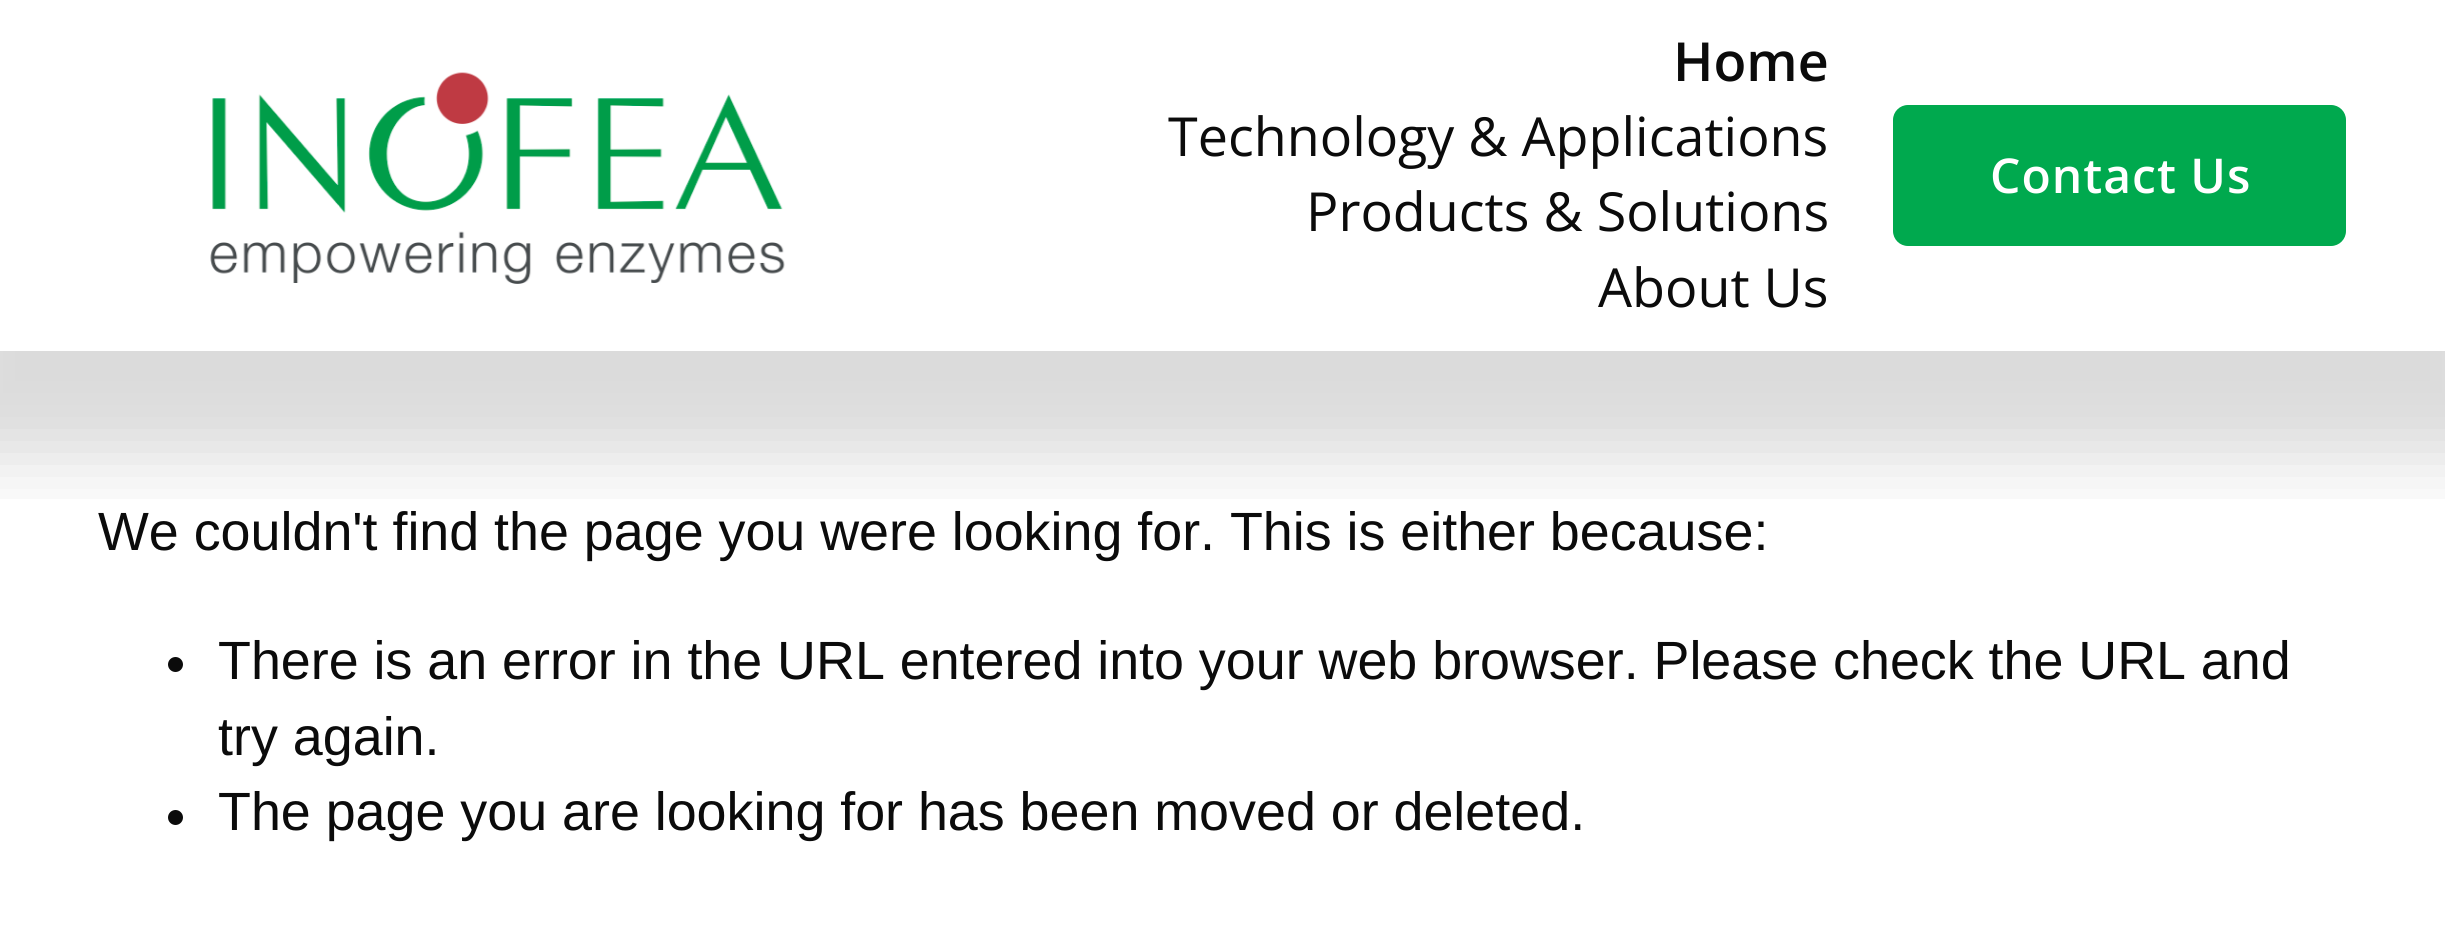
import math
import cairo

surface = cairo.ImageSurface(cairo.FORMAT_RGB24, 2445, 941)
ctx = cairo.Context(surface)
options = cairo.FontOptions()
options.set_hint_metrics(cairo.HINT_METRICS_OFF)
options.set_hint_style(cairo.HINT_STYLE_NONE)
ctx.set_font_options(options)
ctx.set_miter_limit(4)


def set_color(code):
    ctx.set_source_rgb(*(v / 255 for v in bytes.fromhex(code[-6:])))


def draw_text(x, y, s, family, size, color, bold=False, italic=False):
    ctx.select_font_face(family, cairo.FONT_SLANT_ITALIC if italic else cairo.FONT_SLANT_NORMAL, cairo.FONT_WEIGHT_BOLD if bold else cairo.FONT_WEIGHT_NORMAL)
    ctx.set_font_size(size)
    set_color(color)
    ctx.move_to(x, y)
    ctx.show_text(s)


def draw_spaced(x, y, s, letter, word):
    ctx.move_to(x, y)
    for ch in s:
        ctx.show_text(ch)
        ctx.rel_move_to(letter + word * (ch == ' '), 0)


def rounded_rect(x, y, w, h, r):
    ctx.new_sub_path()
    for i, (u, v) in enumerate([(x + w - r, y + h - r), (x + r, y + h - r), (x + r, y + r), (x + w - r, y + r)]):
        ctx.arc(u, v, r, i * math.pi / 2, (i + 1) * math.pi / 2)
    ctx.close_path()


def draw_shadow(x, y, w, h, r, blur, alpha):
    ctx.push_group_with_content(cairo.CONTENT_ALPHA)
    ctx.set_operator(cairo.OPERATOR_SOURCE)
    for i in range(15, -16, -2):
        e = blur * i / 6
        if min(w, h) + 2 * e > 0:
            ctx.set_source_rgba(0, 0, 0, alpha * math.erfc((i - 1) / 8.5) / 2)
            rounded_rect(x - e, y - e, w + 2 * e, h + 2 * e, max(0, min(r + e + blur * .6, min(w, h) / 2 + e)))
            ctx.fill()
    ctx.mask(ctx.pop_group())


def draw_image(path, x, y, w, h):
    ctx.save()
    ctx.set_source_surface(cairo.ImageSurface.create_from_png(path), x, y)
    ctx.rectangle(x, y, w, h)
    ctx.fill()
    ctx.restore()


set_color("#ffffff")
ctx.paint()
ctx.save()
ctx.rectangle(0, 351, 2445, 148)
ctx.clip()
set_color("#0b0b0b")
draw_shadow(-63, -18, 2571, 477, 0, 36, 0.15)
ctx.restore()
draw_image("assets/img1.png", 210, 72, 575, 212)
draw_text(1673, 81, "Home", "Open Sans SemiBold", 53.85, "#0b0b0b")
draw_text(1168, 156, "Technology & Applications", "Open Sans", 53.85, "#0b0b0b")
draw_text(1306, 231, "Products & Solutions", "Open Sans", 53.85, "#0b0b0b")
draw_text(1598, 307, "About Us", "Open Sans", 53.85, "#0b0b0b")
set_color("#00a94e")
rounded_rect(1893, 105, 453, 141, 15)
ctx.fill()
ctx.select_font_face("Open Sans SemiBold")
ctx.set_font_size(48)
set_color("#ffffff")
draw_spaced(1990, 193, "Contact Us", 1, 0)
ctx.select_font_face("Liberation Sans")
ctx.set_font_size(53.85)
set_color("#0b0b0b")
draw_spaced(98, 550, "We couldn't find the page you were looking for. This is either because:", 0, -0.1)
ctx.new_path()
ctx.arc(175.5, 664.5, 7.5, 0, 2 * math.pi)
ctx.fill()
draw_spaced(218, 679, "There is an error in the URL entered into your web browser. Please check the URL and", 0, -0.1)
draw_text(218, 755, "try again.", "Liberation Sans", 53.85, "#0b0b0b")
ctx.new_path()
ctx.arc(175.5, 817.5, 7.5, 0, 2 * math.pi)
ctx.fill()
draw_spaced(218, 830, "The page you are looking for has been moved or deleted.", 0, -0.1)
surface.write_to_png("output.png")
